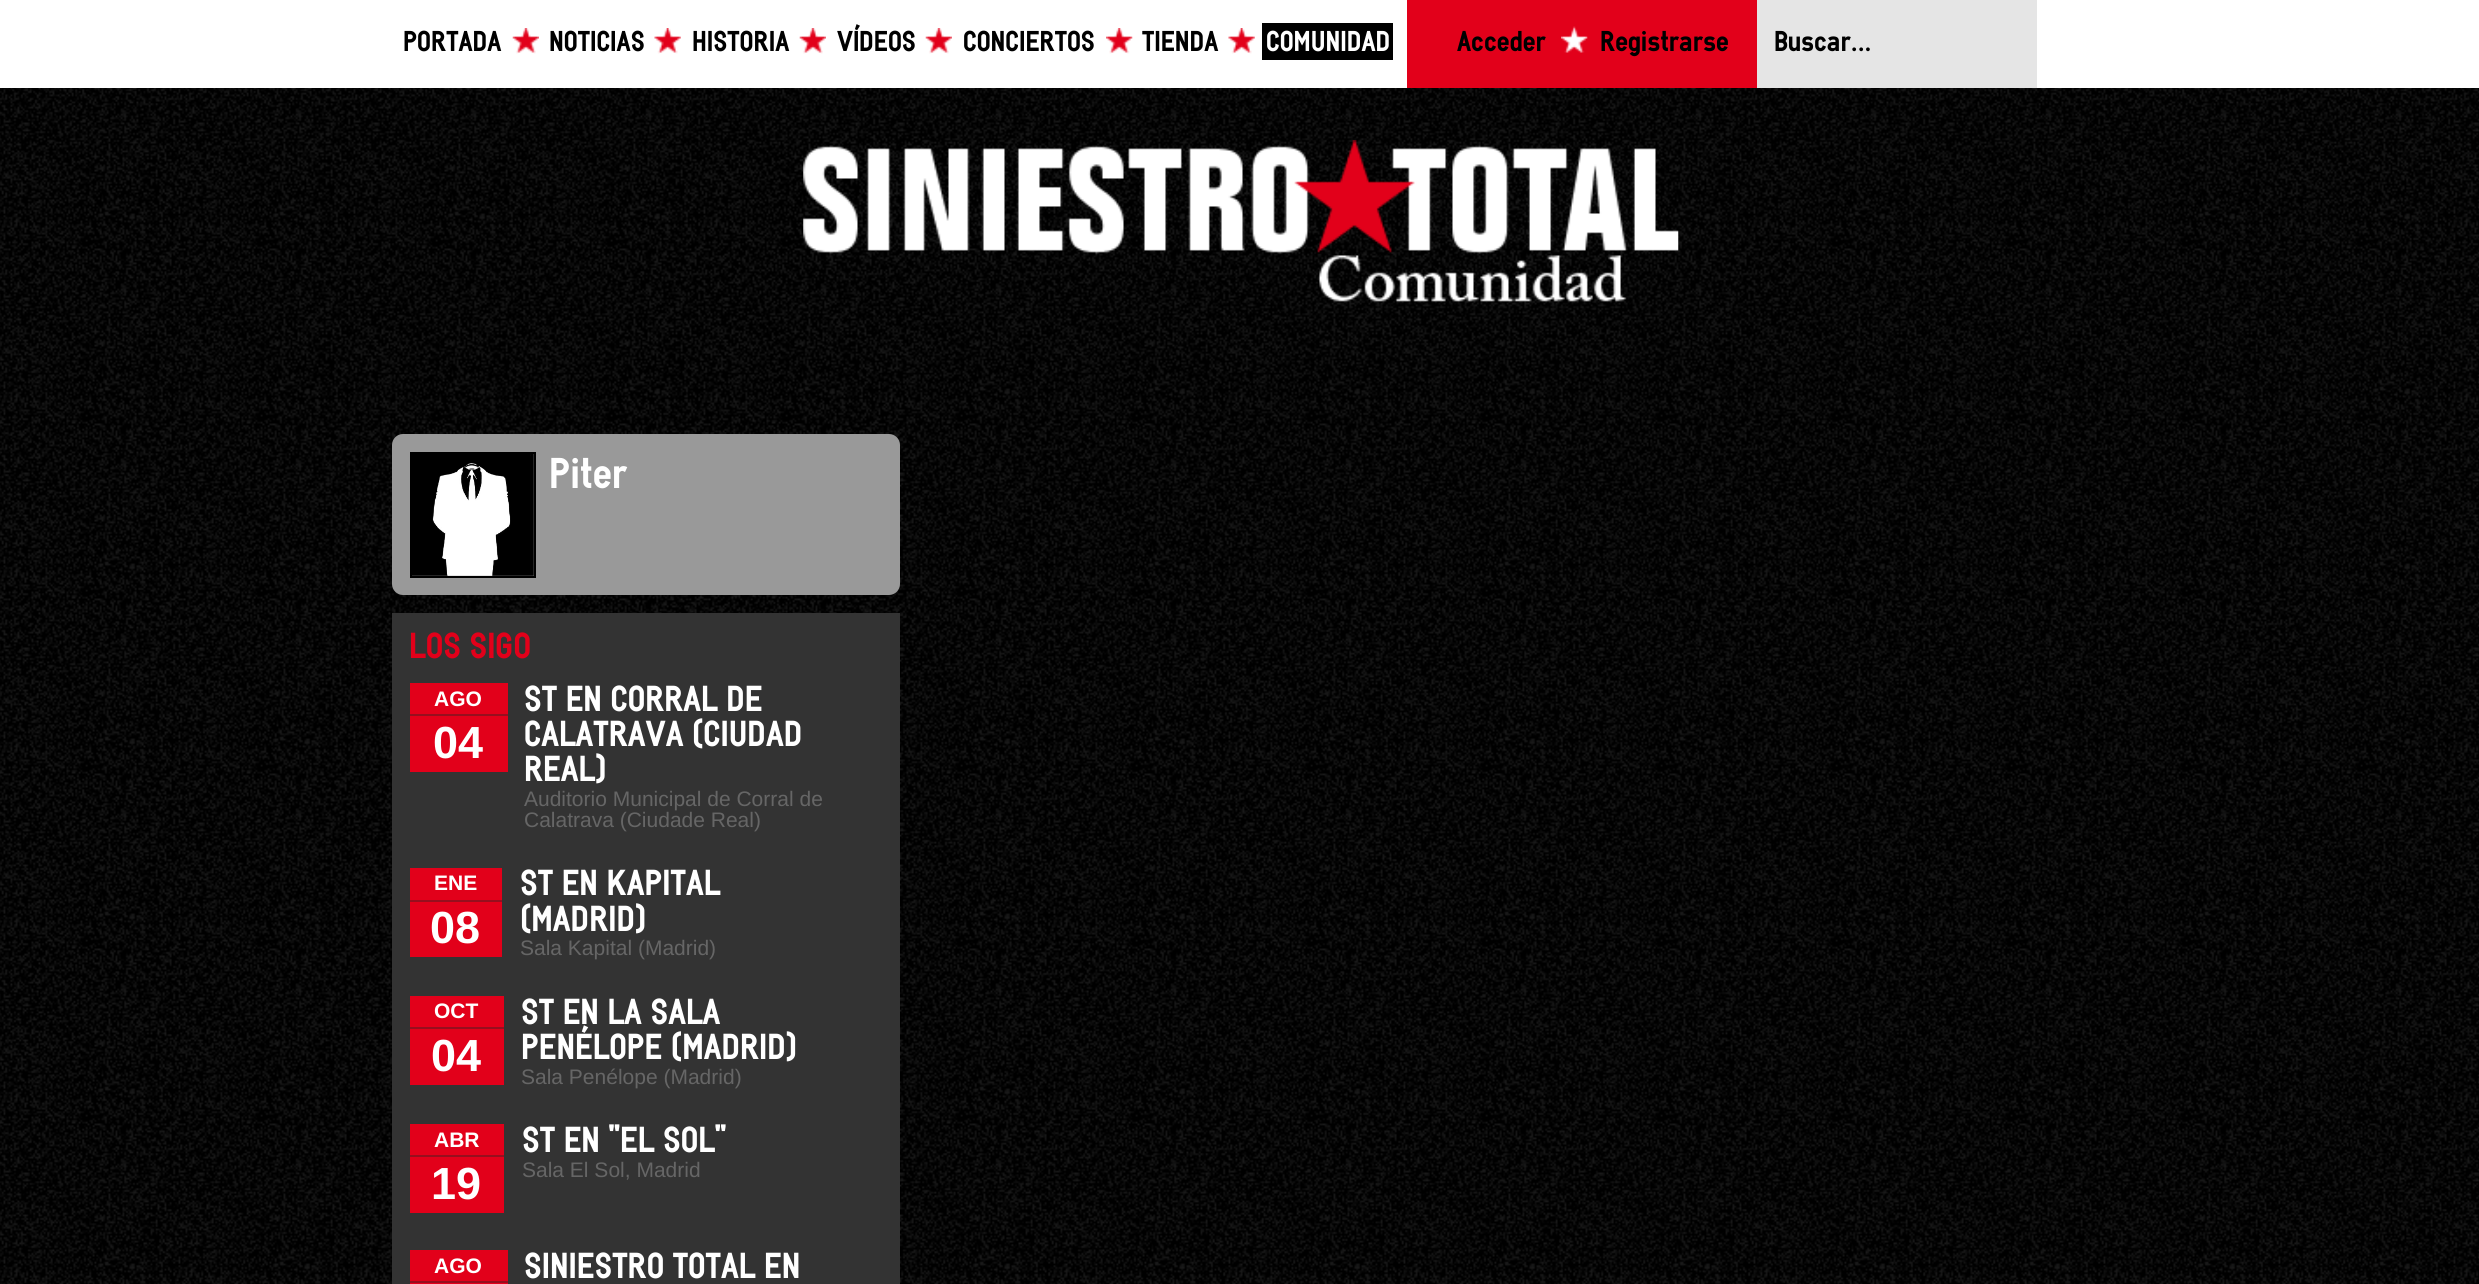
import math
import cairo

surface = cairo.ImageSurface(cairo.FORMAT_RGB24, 2479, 1284)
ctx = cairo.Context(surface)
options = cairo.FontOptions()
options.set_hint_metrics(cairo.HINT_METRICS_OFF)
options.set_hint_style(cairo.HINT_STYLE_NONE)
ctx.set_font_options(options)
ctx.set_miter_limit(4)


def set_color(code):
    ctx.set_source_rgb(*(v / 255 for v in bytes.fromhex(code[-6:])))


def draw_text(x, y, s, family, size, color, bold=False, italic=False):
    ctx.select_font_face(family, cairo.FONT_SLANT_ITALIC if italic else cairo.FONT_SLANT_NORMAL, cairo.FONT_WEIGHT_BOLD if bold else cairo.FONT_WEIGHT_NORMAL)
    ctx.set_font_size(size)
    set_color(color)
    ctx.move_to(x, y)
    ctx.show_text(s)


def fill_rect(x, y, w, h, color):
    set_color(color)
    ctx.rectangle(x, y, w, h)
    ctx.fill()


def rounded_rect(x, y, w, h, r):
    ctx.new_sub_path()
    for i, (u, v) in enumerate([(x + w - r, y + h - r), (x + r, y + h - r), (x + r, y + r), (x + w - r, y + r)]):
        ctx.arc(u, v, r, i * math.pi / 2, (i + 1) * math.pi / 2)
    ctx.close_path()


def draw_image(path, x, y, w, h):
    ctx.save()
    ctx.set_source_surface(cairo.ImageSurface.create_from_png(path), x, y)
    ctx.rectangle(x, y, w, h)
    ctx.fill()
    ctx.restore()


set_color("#ffffff")
ctx.paint()
draw_image("assets/img1.png", 0, 88, 2479, 1196)
draw_image("assets/img2.png", 512, 28, 27, 26)
draw_text(403, 51, "PORTADA", "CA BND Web", 28, "#000000", bold=True)
draw_image("assets/img3.png", 654, 28, 27, 26)
draw_text(549, 51, "NOTICIAS", "CA BND Web", 28, "#000000", bold=True)
draw_image("assets/img2.png", 799, 28, 27, 26)
draw_text(692, 51, "HISTORIA", "CA BND Web", 28, "#000000", bold=True)
draw_image("assets/img2.png", 925, 28, 27, 26)
draw_text(837, 51, "VÍDEOS", "CA BND Web", 28, "#000000", bold=True)
draw_image("assets/img4.png", 1106, 28, 27, 26)
draw_text(963, 51, "CONCIERTOS", "CA BND Web", 28, "#000000", bold=True)
draw_image("assets/img3.png", 1228, 28, 27, 26)
draw_text(1142, 51, "TIENDA", "CA BND Web", 28, "#000000", bold=True)
fill_rect(1262, 23, 131, 37, "#000000")
draw_text(1266, 51, "COMUNIDAD", "CA BND Web", 28, "#ffffff", bold=True)
fill_rect(1407, 0, 350, 88, "#e2001a")
draw_image("assets/img5.png", 1561, 26, 27, 27)
draw_text(1457, 51, "Acceder", "CA BND Web", 28, "#000000", bold=True)
draw_text(1600, 51, "Registrarse", "CA BND Web", 28, "#000000", bold=True)
fill_rect(1757, 0, 280, 88, "#e5e5e5")
draw_text(1774, 51, "Buscar...", "CA BND Web", 28, "#000000", bold=True)
draw_image("assets/img6.png", 803, 140, 876, 162)
set_color("#999999")
rounded_rect(392, 434, 508, 161, 11)
ctx.fill()
ctx.rectangle(411, 453, 124, 124)
set_color("#000000")
ctx.stroke()
draw_image("assets/img7.png", 412, 454, 122, 122)
draw_text(549, 488, "Piter", "CA BND Web", 42, "#ffffff", bold=True)
fill_rect(392, 613, 508, 671, "#333333")
draw_text(409, 658, "LOS SIGO", "CA BND Web", 35.25, "#e2001a", bold=True)
fill_rect(410, 683, 98, 31, "#e2001a")
draw_text(434, 706, "AGO", "Liberation Sans", 21, "#ffffff", bold=True)
fill_rect(410, 716, 98, 56, "#e2001a")
fill_rect(410, 714, 98, 2, "#960f1e")
draw_text(433, 758, "04", "Liberation Sans", 45, "#ffffff", bold=True)
draw_text(524, 711, "ST EN CORRAL DE", "CA BND Web", 35.25, "#ffffff", bold=True)
draw_text(524, 746, "CALATRAVA (CIUDAD", "CA BND Web", 35.25, "#ffffff", bold=True)
draw_text(524, 781, "REAL)", "CA BND Web", 35.25, "#ffffff", bold=True)
draw_text(524, 806, "Auditorio Municipal de Corral de", "Liberation Sans", 21, "#666666")
draw_text(524, 827, "Calatrava (Ciudade Real)", "Liberation Sans", 21, "#666666")
fill_rect(410, 868, 92, 32, "#e2001a")
draw_text(434, 890, "ENE", "Liberation Sans", 21, "#ffffff", bold=True)
fill_rect(410, 902, 92, 55, "#e2001a")
fill_rect(410, 900, 92, 2, "#960f1e")
draw_text(430, 943, "08", "Liberation Sans", 45, "#ffffff", bold=True)
draw_text(520, 895, "ST EN KAPITAL", "CA BND Web", 35.25, "#ffffff", bold=True)
draw_text(520, 931, "(MADRID)", "CA BND Web", 35.25, "#ffffff", bold=True)
draw_text(520, 955, "Sala Kapital (Madrid)", "Liberation Sans", 21, "#666666")
fill_rect(410, 996, 94, 31, "#e2001a")
draw_text(434, 1018, "OCT", "Liberation Sans", 21, "#ffffff", bold=True)
fill_rect(410, 1029, 94, 56, "#e2001a")
fill_rect(410, 1027, 94, 2, "#960f1e")
draw_text(431, 1071, "04", "Liberation Sans", 45, "#ffffff", bold=True)
draw_text(521, 1024, "ST EN LA SALA", "CA BND Web", 35.25, "#ffffff", bold=True)
draw_text(521, 1059, "PENÉLOPE (MADRID)", "CA BND Web", 35.25, "#ffffff", bold=True)
draw_text(521, 1084, "Sala Penélope (Madrid)", "Liberation Sans", 21, "#666666")
fill_rect(410, 1124, 94, 31, "#e2001a")
draw_text(434, 1147, "ABR", "Liberation Sans", 21, "#ffffff", bold=True)
fill_rect(410, 1157, 94, 56, "#e2001a")
fill_rect(410, 1155, 94, 2, "#960f1e")
draw_text(431, 1199, "19", "Liberation Sans", 45, "#ffffff", bold=True)
draw_text(522, 1152, "ST EN \"EL SOL\"", "CA BND Web", 35.25, "#ffffff", bold=True)
draw_text(522, 1177, "Sala El Sol, Madrid", "Liberation Sans", 21, "#666666")
fill_rect(410, 1250, 98, 31, "#e2001a")
draw_text(434, 1273, "AGO", "Liberation Sans", 21, "#ffffff", bold=True)
fill_rect(410, 1283, 98, 1, "#e2001a")
fill_rect(410, 1281, 98, 2, "#960f1e")
draw_text(524, 1278, "SINIESTRO TOTAL EN", "CA BND Web", 35.25, "#ffffff", bold=True)
surface.write_to_png("output.png")
